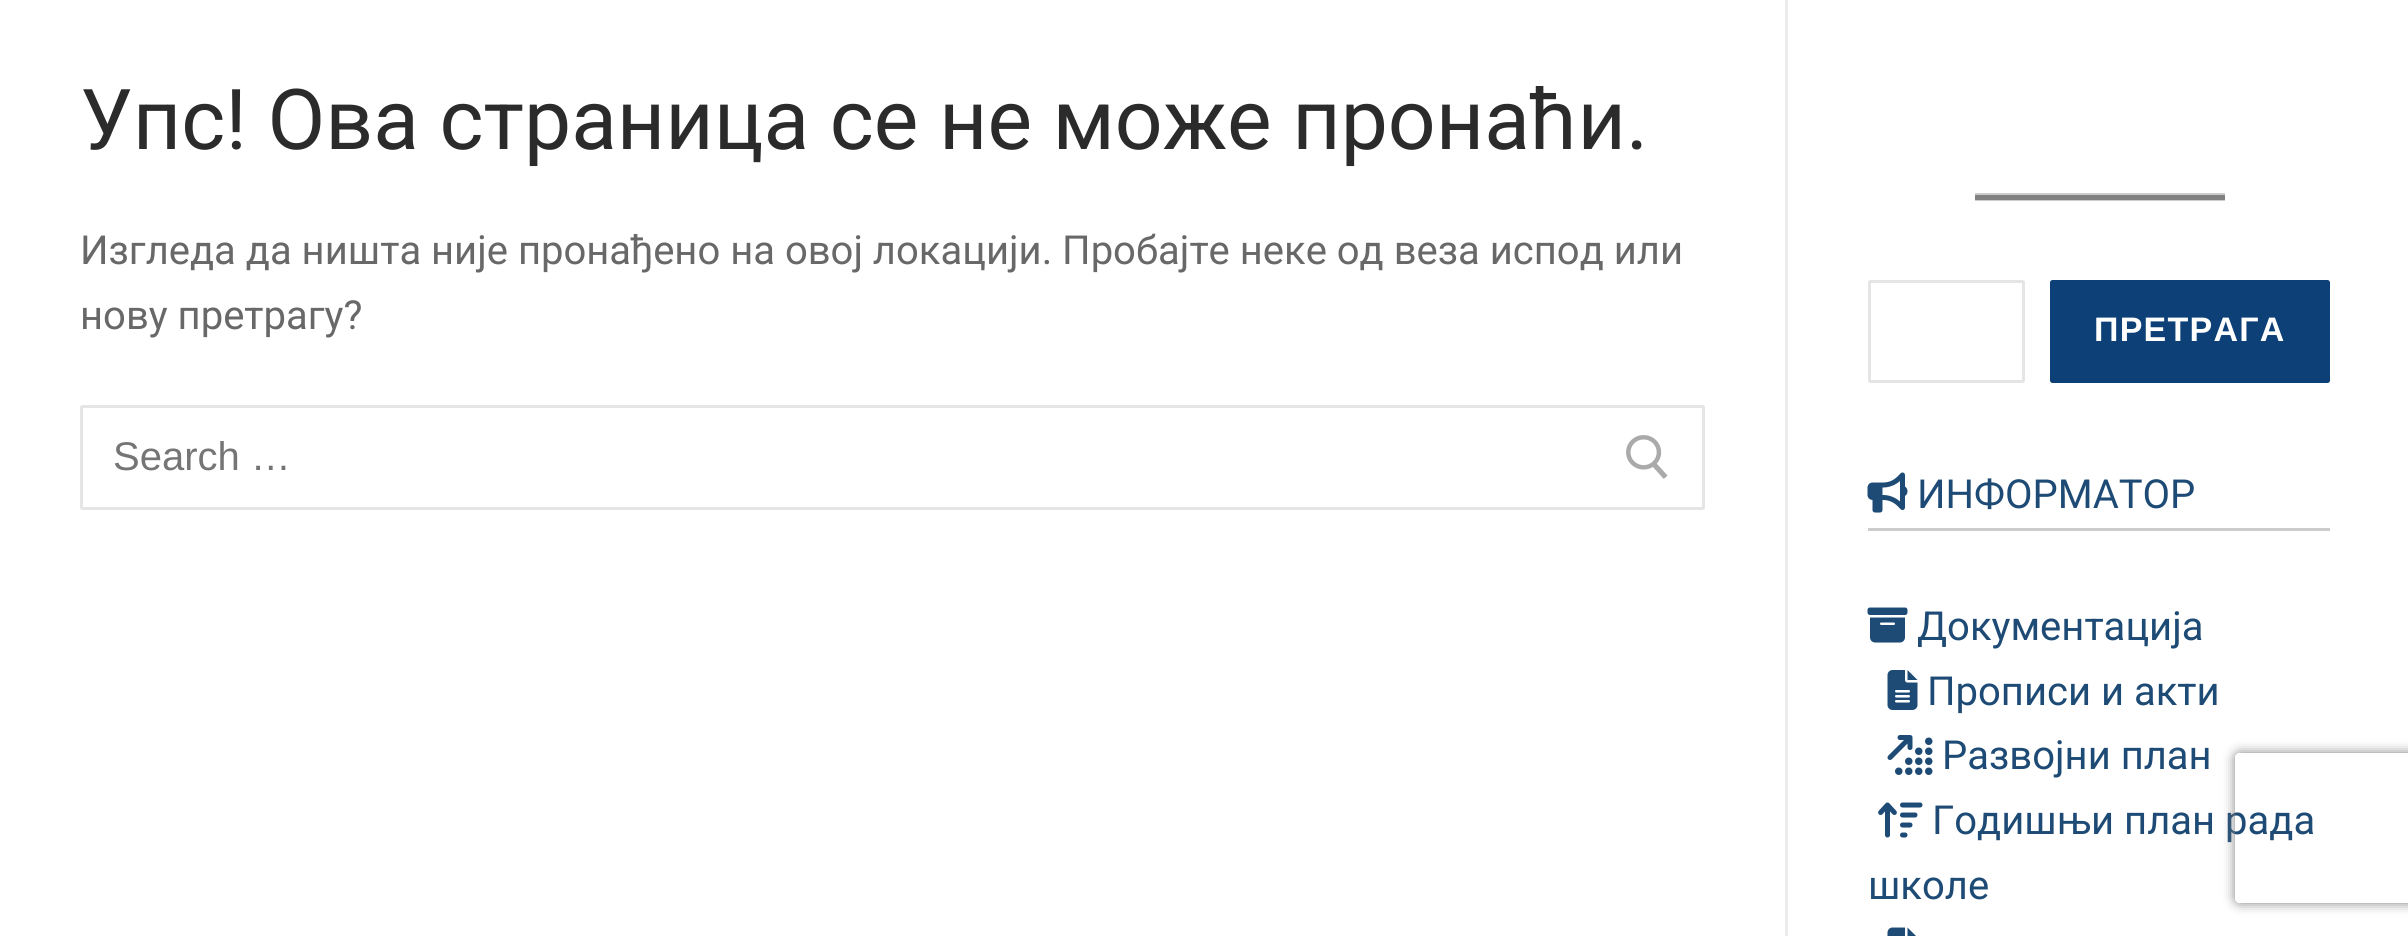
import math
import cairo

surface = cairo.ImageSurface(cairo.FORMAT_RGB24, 2408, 936)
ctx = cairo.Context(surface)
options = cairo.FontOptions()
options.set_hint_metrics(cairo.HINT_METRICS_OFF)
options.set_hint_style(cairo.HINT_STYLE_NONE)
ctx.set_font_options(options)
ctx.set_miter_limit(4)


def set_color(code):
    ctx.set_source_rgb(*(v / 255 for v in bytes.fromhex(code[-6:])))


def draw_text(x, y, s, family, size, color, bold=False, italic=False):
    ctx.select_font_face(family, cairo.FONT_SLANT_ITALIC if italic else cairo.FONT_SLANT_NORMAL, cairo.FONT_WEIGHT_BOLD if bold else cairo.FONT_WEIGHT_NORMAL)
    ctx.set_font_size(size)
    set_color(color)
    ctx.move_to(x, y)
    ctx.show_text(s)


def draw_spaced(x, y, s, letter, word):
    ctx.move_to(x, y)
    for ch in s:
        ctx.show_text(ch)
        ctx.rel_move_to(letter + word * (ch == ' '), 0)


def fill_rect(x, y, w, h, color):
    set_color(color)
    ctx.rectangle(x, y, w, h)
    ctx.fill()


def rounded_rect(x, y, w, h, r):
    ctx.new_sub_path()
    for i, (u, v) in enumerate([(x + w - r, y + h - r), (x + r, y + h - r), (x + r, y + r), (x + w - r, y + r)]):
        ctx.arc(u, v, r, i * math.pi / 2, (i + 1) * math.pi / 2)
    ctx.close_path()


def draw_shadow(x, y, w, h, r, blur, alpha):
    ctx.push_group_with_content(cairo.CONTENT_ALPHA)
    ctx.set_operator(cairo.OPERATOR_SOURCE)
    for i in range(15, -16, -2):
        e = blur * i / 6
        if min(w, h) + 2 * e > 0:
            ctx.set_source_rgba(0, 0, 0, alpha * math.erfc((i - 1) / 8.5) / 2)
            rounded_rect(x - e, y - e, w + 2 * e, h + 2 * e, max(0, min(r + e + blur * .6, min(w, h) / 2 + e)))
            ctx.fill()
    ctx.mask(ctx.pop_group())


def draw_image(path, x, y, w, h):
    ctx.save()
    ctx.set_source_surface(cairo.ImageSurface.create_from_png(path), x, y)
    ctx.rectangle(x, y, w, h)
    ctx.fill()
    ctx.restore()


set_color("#ffffff")
ctx.paint()
fill_rect(1785, 0, 3, 936, "#eaecee")
ctx.select_font_face("Roboto")
ctx.set_font_size(84)
set_color("#2b2b2b")
draw_spaced(80, 149, "Упс! Ова страница се не може пронаћи.", 0, -0.25)
draw_text(80, 264, "Изгледа да ништа није пронађено на овој локацији. Пробајте неке од веза испод или", "Roboto", 40, "#686868")
draw_text(80, 329, "нову претрагу?", "Roboto", 40, "#686868")
rounded_rect(81.5, 406.5, 1622, 102, 1)
set_color("#e5e5e5")
ctx.set_line_width(3)
ctx.stroke()
draw_text(113, 470, "Search …", "Liberation Sans", 40, "#757575")
draw_image("assets/img1.png", 1626, 435, 42, 44)
fill_rect(1975, 193, 250, 8, "#cccccc")
fill_rect(1975, 195, 250, 5, "#808080")
rounded_rect(1869.5, 281.5, 154, 100, 1)
set_color("#e5e5e5")
ctx.stroke()
set_color("#0c4077")
rounded_rect(2050, 280, 280, 103, 2.5)
ctx.fill()
ctx.select_font_face("Liberation Sans", cairo.FONT_SLANT_NORMAL, cairo.FONT_WEIGHT_BOLD)
ctx.set_font_size(34)
set_color("#ffffff")
draw_spaced(2094, 341, "ПРЕТРАГА", 1.25, 0)
draw_image("assets/img2.png", 1867, 472, 41, 41)
draw_text(1917, 508, "ИНФОРМАТОР", "Roboto", 40, "#1e4b75")
fill_rect(1868, 528, 462, 3, "#cccccc")
draw_image("assets/img3.png", 1867, 607, 41, 36)
draw_text(1917, 640, "Документација", "Roboto", 40, "#1e4b75")
draw_image("assets/img4.png", 1887, 670, 31, 40)
draw_text(1927, 705, "Прописи и акти", "Roboto", 40, "#1e4b75")
draw_image("assets/img5.png", 1887, 735, 46, 40)
draw_text(1942, 769, "Развојни план", "Roboto", 40, "#1e4b75")
draw_image("assets/img6.png", 1878, 802, 45, 36)
draw_text(1932, 834, "Годишњи план рада", "Roboto", 40, "#1e4b75")
draw_text(1868, 899, "школе", "Roboto", 40, "#1e4b75")
draw_image("assets/img7.png", 1887, 927, 29, 9)
ctx.save()
ctx.set_fill_rule(cairo.FILL_RULE_EVEN_ODD)
ctx.new_path()
ctx.move_to(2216, 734)
ctx.line_to(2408, 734)
ctx.line_to(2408, 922)
ctx.line_to(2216, 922)
ctx.close_path()
ctx.move_to(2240, 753)
ctx.line_to(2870, 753)
ctx.curve_to(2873, 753, 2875, 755, 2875, 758)
ctx.line_to(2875, 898)
ctx.curve_to(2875, 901, 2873, 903, 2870, 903)
ctx.line_to(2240, 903)
ctx.curve_to(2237, 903, 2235, 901, 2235, 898)
ctx.line_to(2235, 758)
ctx.curve_to(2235, 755, 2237, 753, 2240, 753)
ctx.close_path()
ctx.clip()
set_color("#808080")
draw_shadow(2235, 753, 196, 150, 5, 6, 1)
ctx.restore()
surface.write_to_png("output.png")
